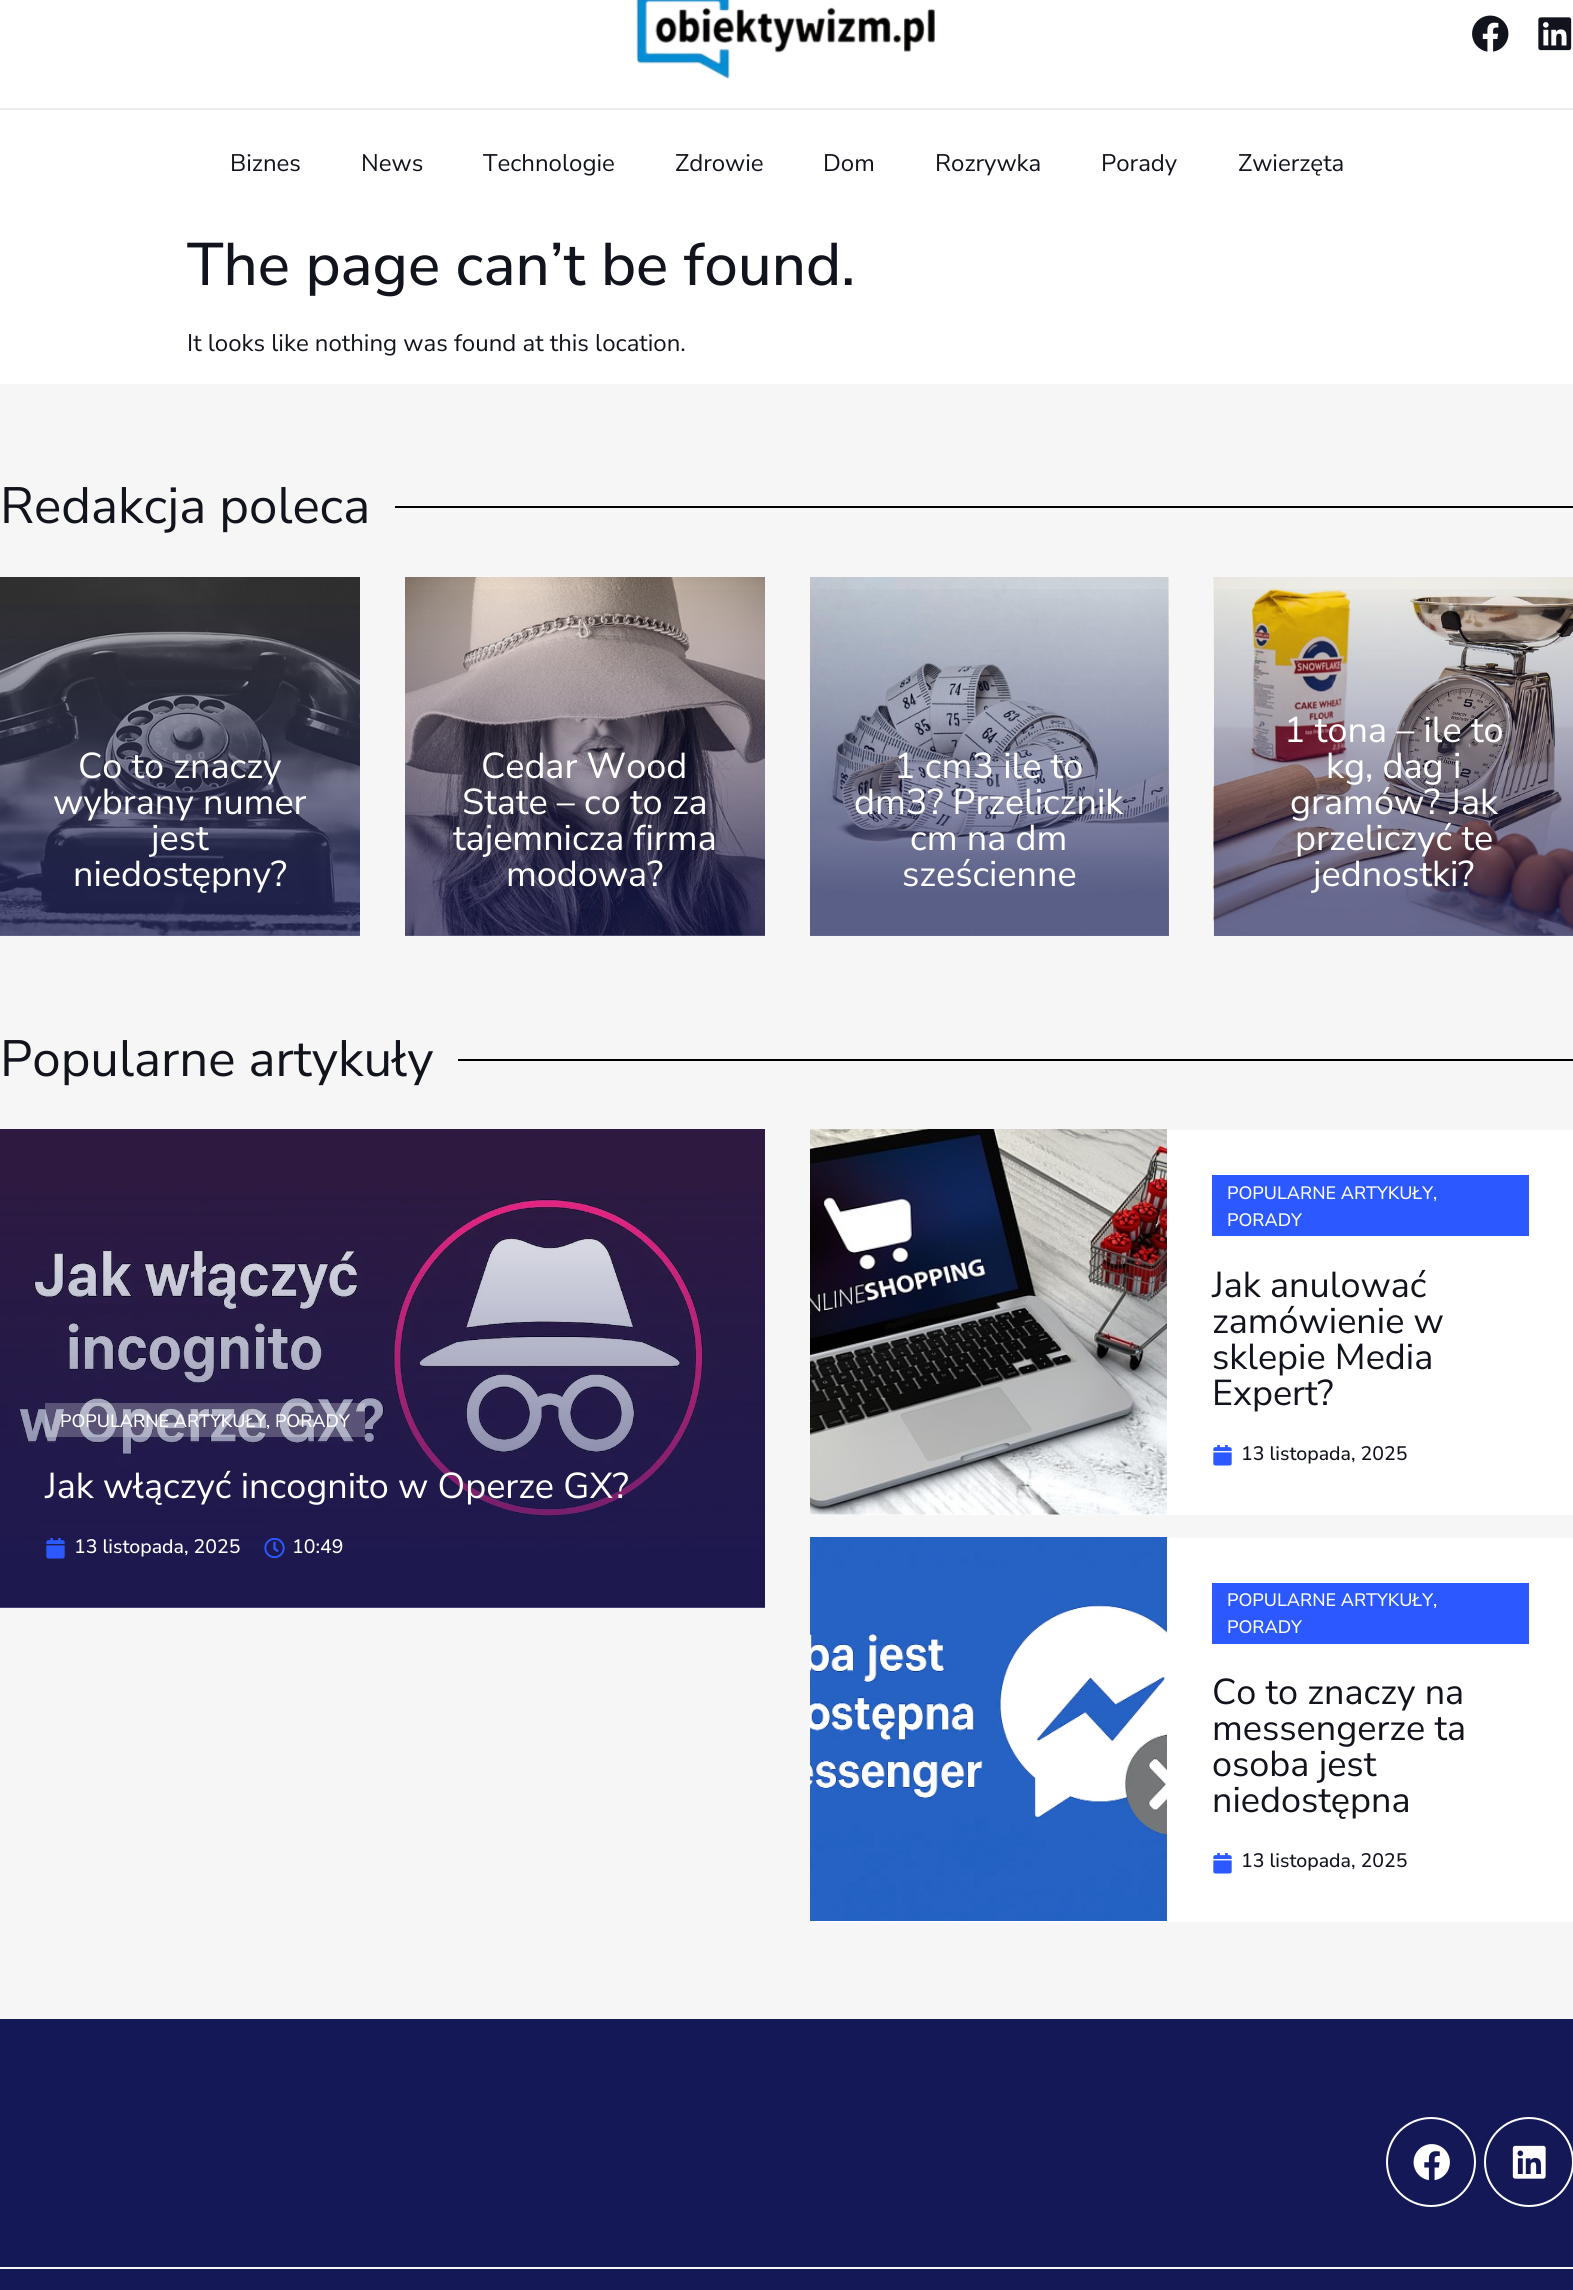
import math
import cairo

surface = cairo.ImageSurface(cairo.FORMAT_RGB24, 1573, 2290)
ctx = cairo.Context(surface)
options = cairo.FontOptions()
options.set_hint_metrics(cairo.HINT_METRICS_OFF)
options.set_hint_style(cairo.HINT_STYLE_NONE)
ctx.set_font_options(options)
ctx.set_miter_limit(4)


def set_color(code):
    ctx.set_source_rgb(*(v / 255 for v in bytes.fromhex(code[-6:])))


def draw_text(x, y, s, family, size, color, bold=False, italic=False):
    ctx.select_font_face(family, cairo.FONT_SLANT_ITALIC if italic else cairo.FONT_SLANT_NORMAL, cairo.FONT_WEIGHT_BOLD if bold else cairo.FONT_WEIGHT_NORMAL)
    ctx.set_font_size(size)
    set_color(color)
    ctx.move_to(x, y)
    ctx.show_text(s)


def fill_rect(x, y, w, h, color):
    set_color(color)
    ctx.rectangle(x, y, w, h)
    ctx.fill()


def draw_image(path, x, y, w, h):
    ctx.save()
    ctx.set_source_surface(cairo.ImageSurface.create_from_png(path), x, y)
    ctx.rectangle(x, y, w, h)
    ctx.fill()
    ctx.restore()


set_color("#ffffff")
ctx.paint()
fill_rect(0, 108, 1573, 2, "#ebebeb")
draw_image("assets/img1.png", 636, 0, 299, 79)
draw_image("assets/img2.png", 1472, 15, 37, 37)
draw_image("assets/img3.png", 1538, 17, 34, 34)
draw_text(230, 171, "Biznes", "Nunito Sans", 24, "#12141d")
draw_text(361, 171, "News", "Nunito Sans", 24, "#12141d")
draw_text(483, 171, "Technologie", "Nunito Sans", 24, "#12141d")
draw_text(675, 171, "Zdrowie", "Nunito Sans", 24, "#12141d")
draw_text(823, 171, "Dom", "Nunito Sans", 24, "#12141d")
draw_text(935, 171, "Rozrywka", "Nunito Sans", 24, "#12141d")
draw_text(1101, 171, "Porady", "Nunito Sans", 24, "#12141d")
draw_text(1238, 171, "Zwierzęta", "Nunito Sans", 24, "#12141d")
draw_text(187, 285, "The page can’t be found.", "Nunito Sans Medium", 60, "#12141d")
draw_text(187, 351, "It looks like nothing was found at this location.", "Nunito Sans", 24, "#12141d")
fill_rect(0, 384, 1573, 1635, "#f6f6f6")
draw_text(0, 523, "Redakcja poleca", "Nunito Sans", 51, "#12141d")
fill_rect(395, 506, 1178, 2, "#000000")
draw_image("assets/img4.png", 0, 577, 360, 359)
gradient = cairo.LinearGradient(180, 578, 180, 936)
gradient.add_color_stop_rgba(0, 0.078, 0.094, 0.341, 0)
gradient.add_color_stop_rgba(0.88, 0.078, 0.094, 0.341, 0.62)
ctx.set_source(gradient)
ctx.rectangle(0, 604, 360, 332)
ctx.fill()
draw_text(78, 778, "Co to znaczy", "Nunito Sans", 36, "#ffffff")
draw_text(53, 814, "wybrany numer", "Nunito Sans", 36, "#ffffff")
draw_text(151, 850, "jest", "Nunito Sans", 36, "#ffffff")
draw_text(73, 886, "niedostępny?", "Nunito Sans", 36, "#ffffff")
draw_image("assets/img5.png", 405, 577, 360, 359)
gradient = cairo.LinearGradient(585, 578, 585, 936)
gradient.add_color_stop_rgba(0, 0.078, 0.094, 0.341, 0)
gradient.add_color_stop_rgba(0.88, 0.078, 0.094, 0.341, 0.62)
ctx.set_source(gradient)
ctx.rectangle(405, 589, 360, 347)
ctx.fill()
draw_text(481, 778, "Cedar Wood", "Nunito Sans", 36, "#ffffff")
draw_text(462, 814, "State – co to za", "Nunito Sans", 36, "#ffffff")
draw_text(453, 850, "tajemnicza firma", "Nunito Sans", 36, "#ffffff")
draw_text(506, 886, "modowa?", "Nunito Sans", 36, "#ffffff")
draw_image("assets/img6.png", 810, 577, 359, 359)
gradient = cairo.LinearGradient(989, 578, 989, 936)
gradient.add_color_stop_rgba(0, 0.078, 0.094, 0.341, 0)
gradient.add_color_stop_rgba(0.88, 0.078, 0.094, 0.341, 0.62)
ctx.set_source(gradient)
ctx.rectangle(810, 589, 359, 347)
ctx.fill()
draw_text(894, 778, "1 cm3 ile to", "Nunito Sans", 36, "#ffffff")
draw_text(854, 814, "dm3? Przelicznik", "Nunito Sans", 36, "#ffffff")
draw_text(910, 850, "cm na dm", "Nunito Sans", 36, "#ffffff")
draw_text(902, 886, "sześcienne", "Nunito Sans", 36, "#ffffff")
draw_image("assets/img7.png", 1213, 577, 360, 359)
gradient = cairo.LinearGradient(1394, 578, 1394, 936)
gradient.add_color_stop_rgba(0, 0.078, 0.094, 0.341, 0)
gradient.add_color_stop_rgba(0.88, 0.078, 0.094, 0.341, 0.62)
ctx.set_source(gradient)
ctx.rectangle(1214, 589, 359, 347)
ctx.fill()
draw_text(1284, 742, "1 tona – ile to", "Nunito Sans", 36, "#ffffff")
draw_text(1326, 778, "kg, dag i", "Nunito Sans", 36, "#ffffff")
draw_text(1290, 814, "gramów? Jak", "Nunito Sans", 36, "#ffffff")
draw_text(1295, 850, "przeliczyć te", "Nunito Sans", 36, "#ffffff")
draw_text(1313, 886, "jednostki?", "Nunito Sans", 36, "#ffffff")
draw_text(0, 1076, "Popularne artykuły", "Nunito Sans", 51, "#12141d")
fill_rect(458, 1059, 1115, 2, "#000000")
draw_image("assets/img8.png", 0, 1129, 765, 479)
gradient = cairo.LinearGradient(382, 1130, 383, 1608)
gradient.add_color_stop_rgba(0, 0.078, 0.094, 0.341, 0)
gradient.add_color_stop_rgba(0.88, 0.078, 0.094, 0.341, 0.62)
ctx.set_source(gradient)
ctx.rectangle(0, 1188, 765, 420)
ctx.fill()
ctx.set_source_rgba(1, 1, 1, 0.25)
ctx.rectangle(45, 1403, 320, 34)
ctx.fill()
draw_text(60, 1427, "POPULARNE ARTYKUŁY, PORADY", "Nunito Sans Medium", 18, "#ffffff")
draw_text(45, 1498, "Jak włączyć incognito w Operze GX?", "Nunito Sans", 36, "#ffffff")
draw_image("assets/img9.png", 46, 1538, 19, 21)
draw_text(74, 1553, "13 listopada, 2025", "Nunito Sans Medium", 19.5, "#ffffff")
draw_image("assets/img10.png", 264, 1538, 21, 21)
draw_text(292, 1553, "10:49", "Nunito Sans Medium", 19.5, "#ffffff")
fill_rect(810, 1130, 763, 385, "#ffffff")
draw_image("assets/img11.png", 810, 1129, 357, 386)
fill_rect(1212, 1175, 317, 61, "#2b59ff")
draw_text(1227, 1199, "POPULARNE ARTYKUŁY,", "Nunito Sans Medium", 18, "#ffffff")
draw_text(1227, 1226, "PORADY", "Nunito Sans Medium", 18, "#ffffff")
draw_text(1212, 1297, "Jak anulować", "Nunito Sans", 36, "#12141d")
draw_text(1212, 1333, "zamówienie w", "Nunito Sans", 36, "#12141d")
draw_text(1212, 1369, "sklepie Media", "Nunito Sans", 36, "#12141d")
draw_text(1212, 1405, "Expert?", "Nunito Sans", 36, "#12141d")
draw_image("assets/img12.png", 1213, 1445, 19, 21)
draw_text(1241, 1460, "13 listopada, 2025", "Nunito Sans Medium", 19.5, "#12141d")
fill_rect(810, 1538, 763, 384, "#ffffff")
draw_image("assets/img13.png", 810, 1537, 357, 384)
fill_rect(1212, 1583, 317, 61, "#2b59ff")
draw_text(1227, 1606, "POPULARNE ARTYKUŁY,", "Nunito Sans Medium", 18, "#ffffff")
draw_text(1227, 1633, "PORADY", "Nunito Sans Medium", 18, "#ffffff")
draw_text(1212, 1704, "Co to znaczy na", "Nunito Sans", 36, "#12141d")
draw_text(1212, 1740, "messengerze ta", "Nunito Sans", 36, "#12141d")
draw_text(1212, 1776, "osoba jest", "Nunito Sans", 36, "#12141d")
draw_text(1212, 1812, "niedostępna", "Nunito Sans", 36, "#12141d")
draw_image("assets/img12.png", 1213, 1853, 19, 21)
draw_text(1241, 1867, "13 listopada, 2025", "Nunito Sans Medium", 19.5, "#12141d")
fill_rect(0, 2019, 1573, 271, "#141857")
fill_rect(0, 2267, 1573, 2, "#f6f6f6")
ctx.new_path()
ctx.arc(1431, 2162, 44, 0, 2 * math.pi)
set_color("#ffffff")
ctx.stroke()
draw_image("assets/img14.png", 1413, 2144, 37, 37)
ctx.arc(1529, 2162, 44, 0, 2 * math.pi)
ctx.stroke()
draw_image("assets/img15.png", 1512, 2145, 34, 34)
surface.write_to_png("output.png")
